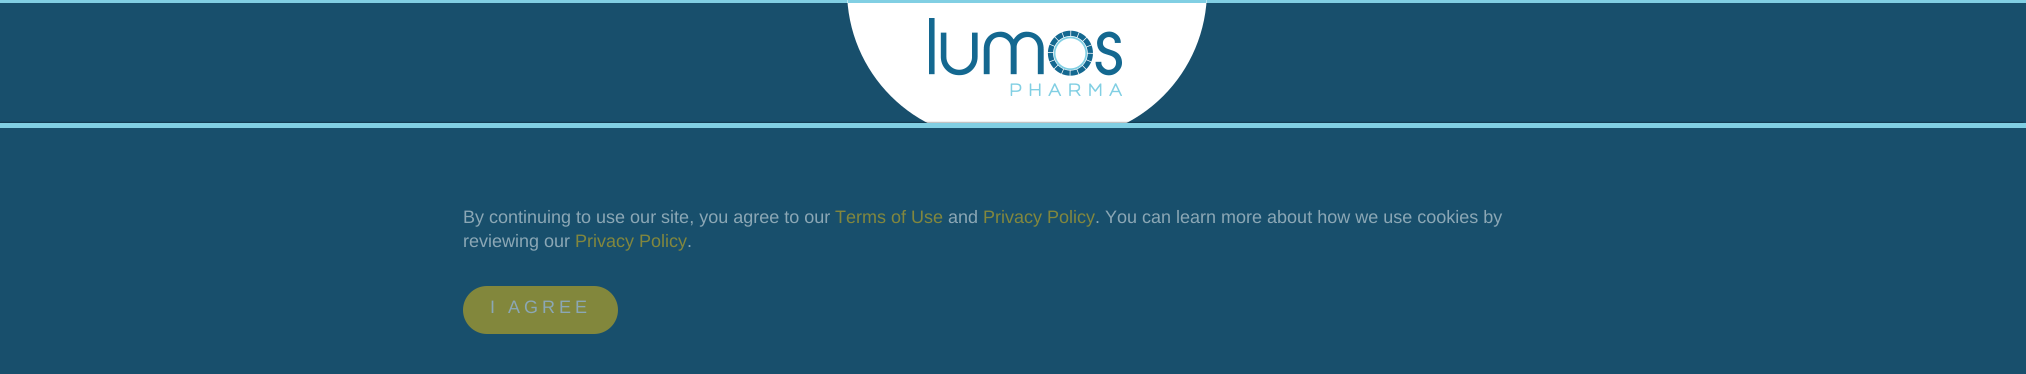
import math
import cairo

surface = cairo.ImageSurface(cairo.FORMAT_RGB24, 2026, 374)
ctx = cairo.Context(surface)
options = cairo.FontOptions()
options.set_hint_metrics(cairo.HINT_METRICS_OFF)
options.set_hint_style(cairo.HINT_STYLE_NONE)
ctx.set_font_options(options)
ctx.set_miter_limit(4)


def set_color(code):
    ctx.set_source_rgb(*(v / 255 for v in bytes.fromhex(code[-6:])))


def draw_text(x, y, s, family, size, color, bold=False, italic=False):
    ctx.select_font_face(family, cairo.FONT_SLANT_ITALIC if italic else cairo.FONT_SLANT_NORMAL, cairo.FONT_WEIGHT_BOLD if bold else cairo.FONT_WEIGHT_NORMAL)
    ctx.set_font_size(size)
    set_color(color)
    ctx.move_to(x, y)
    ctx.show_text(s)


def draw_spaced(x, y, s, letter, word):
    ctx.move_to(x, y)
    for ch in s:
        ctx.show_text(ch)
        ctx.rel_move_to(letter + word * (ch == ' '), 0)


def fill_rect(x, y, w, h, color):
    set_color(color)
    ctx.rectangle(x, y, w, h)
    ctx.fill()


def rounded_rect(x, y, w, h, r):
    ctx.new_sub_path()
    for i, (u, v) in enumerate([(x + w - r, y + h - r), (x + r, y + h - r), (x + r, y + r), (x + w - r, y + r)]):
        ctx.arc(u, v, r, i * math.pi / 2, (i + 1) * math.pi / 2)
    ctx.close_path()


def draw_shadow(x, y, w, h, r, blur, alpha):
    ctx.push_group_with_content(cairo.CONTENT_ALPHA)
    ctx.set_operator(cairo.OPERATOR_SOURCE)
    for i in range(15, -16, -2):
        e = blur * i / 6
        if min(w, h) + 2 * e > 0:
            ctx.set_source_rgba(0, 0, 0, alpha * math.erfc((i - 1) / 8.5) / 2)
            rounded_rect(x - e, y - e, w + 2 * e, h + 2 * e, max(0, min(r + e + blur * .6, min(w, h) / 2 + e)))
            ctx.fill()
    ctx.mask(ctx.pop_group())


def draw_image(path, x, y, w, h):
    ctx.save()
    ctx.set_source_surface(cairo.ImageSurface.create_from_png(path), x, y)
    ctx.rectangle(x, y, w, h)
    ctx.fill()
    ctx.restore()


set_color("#81cfe3")
ctx.paint()
fill_rect(0, 3, 2026, 120, "#184f6c")
set_color("#ffffff")
ctx.new_path()
ctx.move_to(847, 3)
ctx.line_to(1207, 3)
ctx.line_to(1207, -10)
ctx.curve_to(1207, 73, 1140, 140, 1057, 140)
ctx.line_to(997, 140)
ctx.curve_to(914, 140, 847, 73, 847, -10)
ctx.close_path()
ctx.fill()
draw_image("assets/img1.png", 929, 18, 193, 78)
set_color("#000000")
draw_shadow(-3, 123, 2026, 251, 0, 1, 0.7)
fill_rect(0, 128, 2026, 246, "#184f6c")
fill_rect(0, 123, 2026, 5, "#81cfe3")
draw_text(463, 223, "By continuing to use our site, you agree to our", "Liberation Sans", 18, "#8ba7b5")
draw_text(835, 223, "Terms of Use", "Liberation Sans", 18, "#82873d")
draw_text(948, 223, "and", "Liberation Sans", 18, "#8ba7b5")
draw_text(983, 223, "Privacy Policy", "Liberation Sans", 18, "#82873d")
draw_text(1095, 223, ". You can learn more about how we use cookies by", "Liberation Sans", 18, "#8ba7b5")
draw_text(463, 247, "reviewing our", "Liberation Sans", 18, "#8ba7b5")
draw_text(575, 247, "Privacy Policy", "Liberation Sans", 18, "#82873d")
draw_text(687, 247, ".", "Liberation Sans", 18, "#8ba7b5")
set_color("#82873c")
rounded_rect(464, 287, 153, 46, 23)
ctx.fill_preserve()
ctx.stroke()
set_color("#8ba7b5")
draw_spaced(490, 313, "I AGREE", 4, 0)
surface.write_to_png("output.png")
